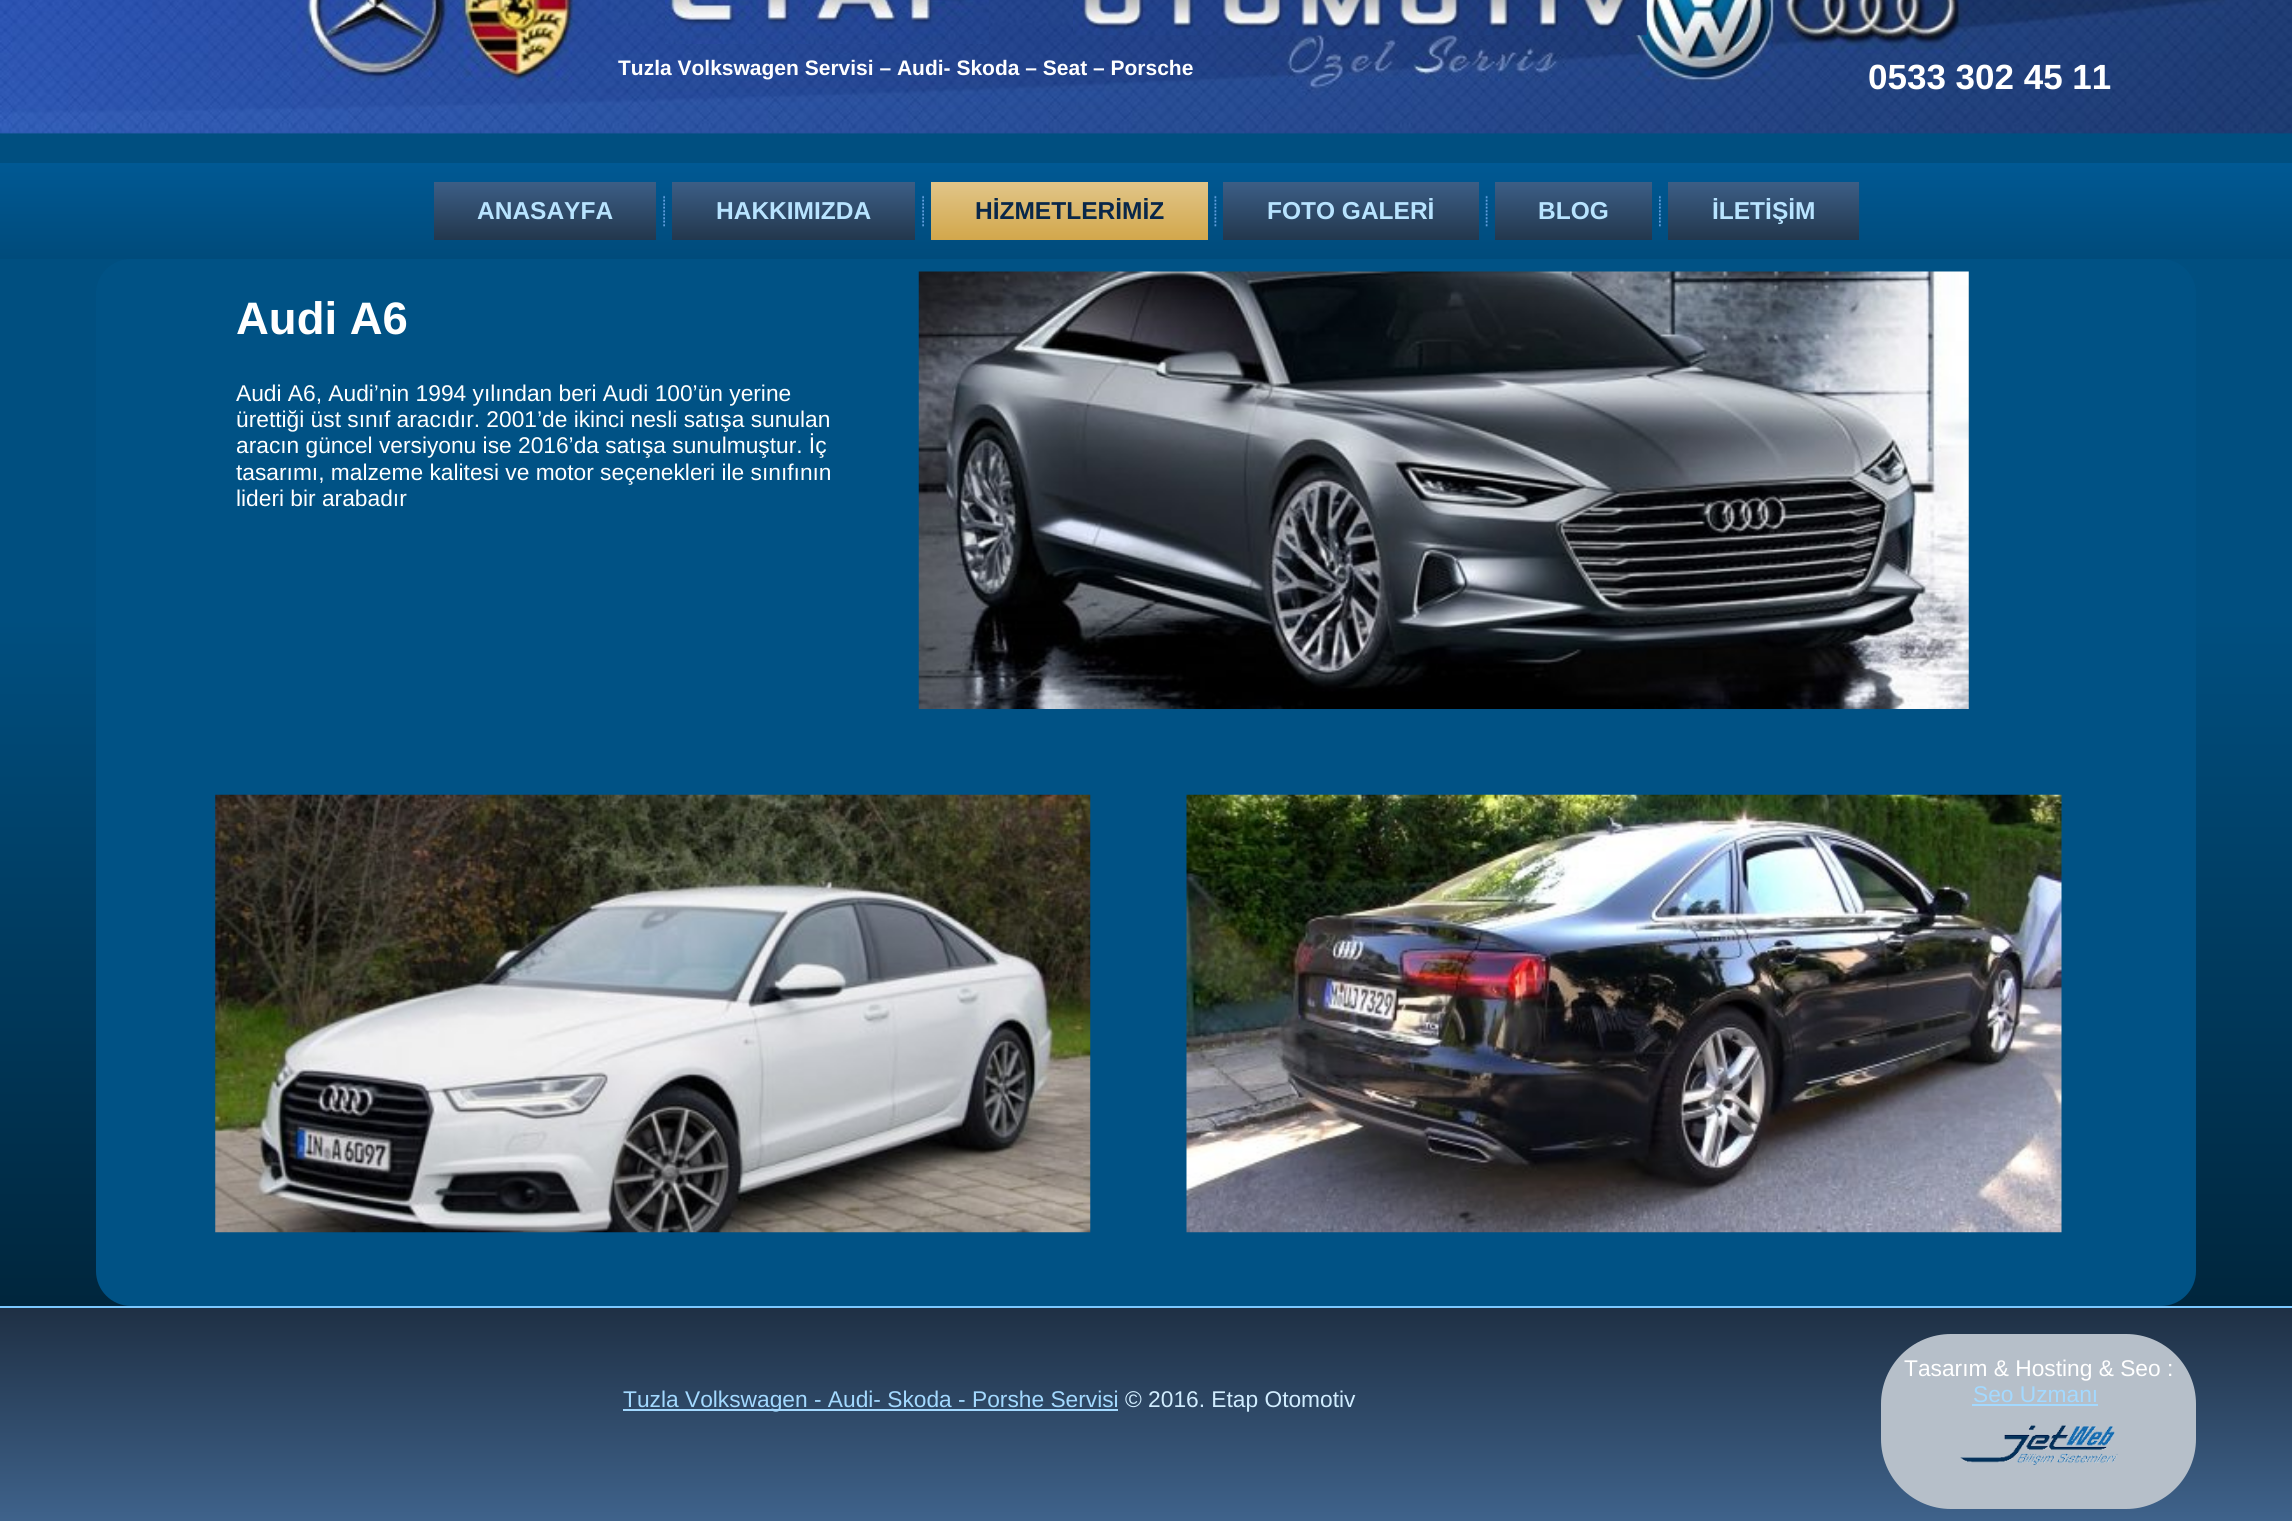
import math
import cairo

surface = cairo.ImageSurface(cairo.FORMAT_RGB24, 2292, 1521)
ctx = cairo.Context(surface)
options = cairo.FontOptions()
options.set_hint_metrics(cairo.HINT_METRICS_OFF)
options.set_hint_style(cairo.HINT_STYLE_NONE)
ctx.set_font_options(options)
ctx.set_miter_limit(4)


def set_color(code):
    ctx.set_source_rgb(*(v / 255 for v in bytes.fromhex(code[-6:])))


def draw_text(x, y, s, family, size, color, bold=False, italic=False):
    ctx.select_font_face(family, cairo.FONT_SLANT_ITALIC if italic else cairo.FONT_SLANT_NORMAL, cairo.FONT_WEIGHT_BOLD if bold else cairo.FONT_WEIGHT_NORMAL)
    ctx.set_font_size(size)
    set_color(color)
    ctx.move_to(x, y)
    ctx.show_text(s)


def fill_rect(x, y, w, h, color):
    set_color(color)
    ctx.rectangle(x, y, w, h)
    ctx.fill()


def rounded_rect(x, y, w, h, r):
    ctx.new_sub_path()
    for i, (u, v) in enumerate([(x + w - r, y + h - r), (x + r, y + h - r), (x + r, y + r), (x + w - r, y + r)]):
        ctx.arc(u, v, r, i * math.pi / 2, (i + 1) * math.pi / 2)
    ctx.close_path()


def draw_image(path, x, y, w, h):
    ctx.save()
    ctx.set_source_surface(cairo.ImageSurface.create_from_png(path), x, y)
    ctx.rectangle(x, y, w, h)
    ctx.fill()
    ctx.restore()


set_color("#ffffff")
ctx.paint()
gradient = cairo.LinearGradient(1146, -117, 1146, 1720)
gradient.add_color_stop_rgba(0, 0, 0.31, 0.502, 1)
gradient.add_color_stop_rgba(0.4, 0, 0.31, 0.502, 1)
gradient.add_color_stop_rgba(1, 0, 0.051, 0.078, 1)
ctx.set_source(gradient)
ctx.rectangle(0, 132, 2292, 1174)
ctx.fill()
draw_image("assets/img1.png", 0, 0, 2292, 134)
draw_image("assets/img2.png", 665, 0, 324, 44)
draw_image("assets/img3.png", 1073, 0, 574, 36)
draw_text(618, 75, "Tuzla Volkswagen Servisi – Audi- Skoda – Seat – Porsche", "Liberation Sans", 21, "#ffffff", bold=True)
draw_text(1868, 89, "0533 302 45 11", "Liberation Sans", 35, "#ffffff", bold=True)
gradient = cairo.LinearGradient(1146, 163, 1146, 259)
gradient.add_color_stop_rgba(0, 0, 0.349, 0.58, 1)
gradient.add_color_stop_rgba(1, 0, 0.294, 0.482, 1)
ctx.set_source(gradient)
ctx.rectangle(0, 163, 2292, 96)
ctx.fill()
gradient = cairo.LinearGradient(545, 182, 545, 240)
gradient.add_color_stop_rgba(0, 0.235, 0.369, 0.525, 1)
gradient.add_color_stop_rgba(1, 0.137, 0.216, 0.302, 1)
ctx.set_source(gradient)
ctx.rectangle(434, 182, 222, 58)
ctx.fill()
draw_text(477, 219, "ANASAYFA", "Liberation Sans", 24.5, "#b8e4ff", bold=True)
draw_image("assets/img4.png", 663, 195, 2, 32)
gradient = cairo.LinearGradient(794, 182, 794, 240)
gradient.add_color_stop_rgba(0, 0.235, 0.369, 0.525, 1)
gradient.add_color_stop_rgba(1, 0.137, 0.216, 0.302, 1)
ctx.set_source(gradient)
ctx.rectangle(672, 182, 243, 58)
ctx.fill()
draw_text(716, 219, "HAKKIMIZDA", "Liberation Sans", 24.5, "#b8e4ff", bold=True)
draw_image("assets/img4.png", 922, 195, 2, 32)
gradient = cairo.LinearGradient(1069, 182, 1069, 240)
gradient.add_color_stop_rgba(0, 0.882, 0.773, 0.537, 1)
gradient.add_color_stop_rgba(1, 0.824, 0.655, 0.294, 1)
ctx.set_source(gradient)
ctx.rectangle(931, 182, 277, 58)
ctx.fill()
draw_text(975, 219, "HİZMETLERİMİZ", "Liberation Sans", 24.5, "#092749", bold=True)
draw_image("assets/img5.png", 1214, 195, 3, 32)
gradient = cairo.LinearGradient(1351, 182, 1351, 240)
gradient.add_color_stop_rgba(0, 0.235, 0.369, 0.525, 1)
gradient.add_color_stop_rgba(1, 0.137, 0.216, 0.302, 1)
ctx.set_source(gradient)
ctx.rectangle(1223, 182, 256, 58)
ctx.fill()
draw_text(1267, 219, "FOTO GALERİ", "Liberation Sans", 24.5, "#b8e4ff", bold=True)
draw_image("assets/img6.png", 1485, 195, 3, 32)
gradient = cairo.LinearGradient(1573, 182, 1573, 240)
gradient.add_color_stop_rgba(0, 0.235, 0.369, 0.525, 1)
gradient.add_color_stop_rgba(1, 0.137, 0.216, 0.302, 1)
ctx.set_source(gradient)
ctx.rectangle(1495, 182, 157, 58)
ctx.fill()
draw_text(1538, 219, "BLOG", "Liberation Sans", 24.5, "#b8e4ff", bold=True)
draw_image("assets/img7.png", 1659, 195, 2, 32)
gradient = cairo.LinearGradient(1763, 182, 1763, 240)
gradient.add_color_stop_rgba(0, 0.235, 0.369, 0.525, 1)
gradient.add_color_stop_rgba(1, 0.137, 0.216, 0.302, 1)
ctx.set_source(gradient)
ctx.rectangle(1668, 182, 191, 58)
ctx.fill()
draw_text(1712, 219, "İLETİŞİM", "Liberation Sans", 24.5, "#b8e4ff", bold=True)
set_color("#005285")
rounded_rect(96, 259, 2100, 1047, 35)
ctx.fill()
draw_text(236, 334, "Audi A6", "Liberation Sans", 45.5, "#ffffff", bold=True)
draw_text(236, 401, "Audi A6, Audi’nin 1994 yılından beri Audi 100’ün yerine", "Liberation Sans", 22.75, "#ffffff")
draw_text(236, 427, "ürettiği üst sınıf aracıdır. 2001’de ikinci nesli satışa sunulan", "Liberation Sans", 22.75, "#ffffff")
draw_text(236, 453, "aracın güncel versiyonu ise 2016’da satışa sunulmuştur. İç", "Liberation Sans", 22.75, "#ffffff")
draw_text(236, 480, "tasarımı, malzeme kalitesi ve motor seçenekleri ile sınıfının", "Liberation Sans", 22.75, "#ffffff")
draw_text(236, 506, "lideri bir arabadır", "Liberation Sans", 22.75, "#ffffff")
draw_image("assets/img8.png", 918, 271, 1051, 438)
draw_image("assets/img9.png", 215, 794, 876, 439)
draw_image("assets/img10.png", 1186, 794, 876, 439)
gradient = cairo.LinearGradient(1146, 1305, 1146, 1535)
gradient.add_color_stop_rgba(0, 0.118, 0.184, 0.263, 1)
gradient.add_color_stop_rgba(1, 0.255, 0.4, 0.565, 1)
ctx.set_source(gradient)
ctx.rectangle(0, 1308, 2292, 213)
ctx.fill()
fill_rect(0, 1306, 2292, 2, "#7ac8ff")
fill_rect(623, 1409, 495, 2, "#a3d9ff")
draw_text(623, 1407, "Tuzla Volkswagen - Audi- Skoda - Porshe Servisi", "Liberation Sans", 22.75, "#a3d9ff")
draw_text(1125, 1407, "© 2016. Etap Otomotiv", "Liberation Sans", 22.75, "#d1edff")
set_color("#b6bfc9")
rounded_rect(1881, 1334, 315, 175, 70)
ctx.fill()
draw_text(1904, 1376, "Tasarım & Hosting & Seo :", "Liberation Sans", 22.75, "#ffffff")
draw_text(1973, 1402, "Seo Uzmanı", "Liberation Sans", 22.75, "#a3d9ff")
fill_rect(1972, 1404, 126, 2, "#a3d9ff")
draw_image("assets/img11.png", 1960, 1425, 158, 40)
surface.write_to_png("output.png")
